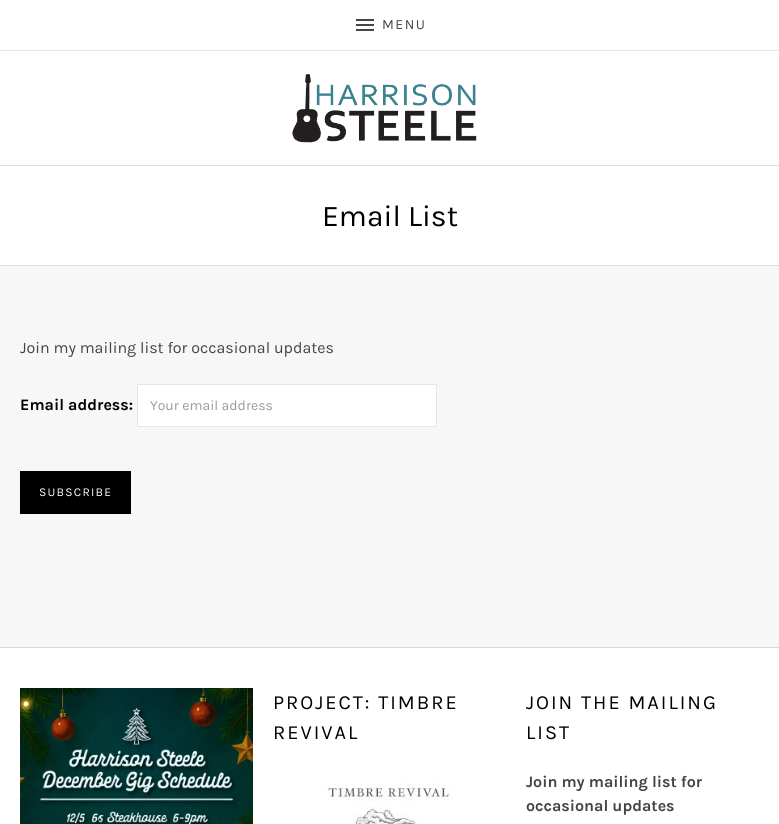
import math
import cairo

surface = cairo.ImageSurface(cairo.FORMAT_RGB24, 779, 824)
ctx = cairo.Context(surface)
options = cairo.FontOptions()
options.set_hint_metrics(cairo.HINT_METRICS_OFF)
options.set_hint_style(cairo.HINT_STYLE_NONE)
ctx.set_font_options(options)
ctx.set_miter_limit(4)


def set_color(code):
    ctx.set_source_rgb(*(v / 255 for v in bytes.fromhex(code[-6:])))


def draw_text(x, y, s, family, size, color, bold=False, italic=False):
    ctx.select_font_face(family, cairo.FONT_SLANT_ITALIC if italic else cairo.FONT_SLANT_NORMAL, cairo.FONT_WEIGHT_BOLD if bold else cairo.FONT_WEIGHT_NORMAL)
    ctx.set_font_size(size)
    set_color(color)
    ctx.move_to(x, y)
    ctx.show_text(s)


def draw_spaced(x, y, s, letter, word):
    ctx.move_to(x, y)
    for ch in s:
        ctx.show_text(ch)
        ctx.rel_move_to(letter + word * (ch == ' '), 0)


def fill_rect(x, y, w, h, color):
    set_color(color)
    ctx.rectangle(x, y, w, h)
    ctx.fill()


def draw_image(path, x, y, w, h):
    ctx.save()
    ctx.set_source_surface(cairo.ImageSurface.create_from_png(path), x, y)
    ctx.rectangle(x, y, w, h)
    ctx.fill()
    ctx.restore()


set_color("#f7f7f7")
ctx.paint()
fill_rect(0, 0, 779, 165, "#ffffff")
fill_rect(0, 165, 779, 1, "#dedede")
fill_rect(0, 50, 779, 1, "#e6e6e6")
draw_image("assets/img1.png", 356, 19, 18, 12)
ctx.select_font_face("Karla")
ctx.set_font_size(14)
set_color("#444444")
draw_spaced(382, 29, "MENU", 1.5, 0)
draw_image("assets/img2.png", 292, 74, 185, 69)
fill_rect(0, 166, 779, 99, "#ffffff")
draw_text(322, 226, "Email List", "Karla", 30, "#000000")
fill_rect(0, 265, 779, 1, "#dedede")
draw_text(20, 353, "Join my mailing list for occasional updates", "Karla", 16, "#444444")
draw_text(20, 410, "Email address:", "Karla", 16, "#000000", bold=True)
set_color("#ffffff")
ctx.rectangle(137.5, 384.5, 299, 42)
ctx.fill_preserve()
set_color("#e6e6e6")
ctx.set_line_width(1)
ctx.stroke()
draw_text(150, 410, "Your email address", "Karla", 14, "#999999")
fill_rect(20, 471, 111, 43, "#000000")
ctx.set_font_size(12)
set_color("#ffffff")
draw_spaced(39, 496, "SUBSCRIBE", 1.25, 0)
fill_rect(0, 647, 779, 1, "#d7d7d7")
fill_rect(0, 648, 779, 176, "#ffffff")
draw_image("assets/img3.png", 20, 688, 233, 136)
ctx.set_font_size(20)
set_color("#000000")
draw_spaced(273, 709, "PROJECT: TIMBRE", 2, 0)
draw_spaced(273, 739, "REVIVAL", 2, 0)
draw_image("assets/img4.png", 326, 783, 125, 41)
draw_spaced(526, 709, "JOIN THE MAILING", 2, 0)
draw_spaced(526, 739, "LIST", 2, 0)
draw_text(526, 787, "Join my mailing list for", "Karla", 16, "#444444", bold=True)
draw_text(526, 811, "occasional updates", "Karla", 16, "#444444", bold=True)
surface.write_to_png("output.png")
